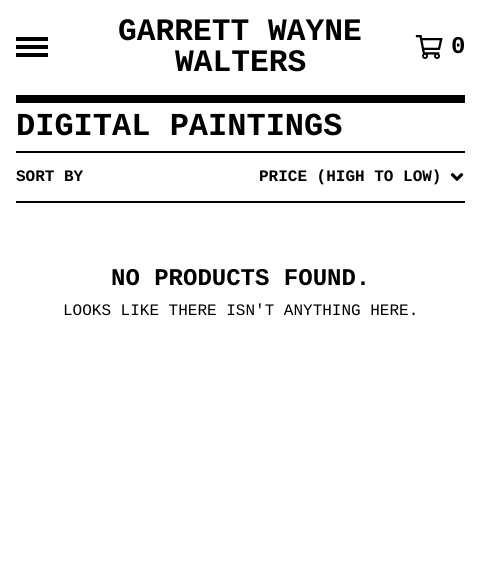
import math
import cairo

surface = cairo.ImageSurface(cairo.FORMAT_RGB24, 481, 583)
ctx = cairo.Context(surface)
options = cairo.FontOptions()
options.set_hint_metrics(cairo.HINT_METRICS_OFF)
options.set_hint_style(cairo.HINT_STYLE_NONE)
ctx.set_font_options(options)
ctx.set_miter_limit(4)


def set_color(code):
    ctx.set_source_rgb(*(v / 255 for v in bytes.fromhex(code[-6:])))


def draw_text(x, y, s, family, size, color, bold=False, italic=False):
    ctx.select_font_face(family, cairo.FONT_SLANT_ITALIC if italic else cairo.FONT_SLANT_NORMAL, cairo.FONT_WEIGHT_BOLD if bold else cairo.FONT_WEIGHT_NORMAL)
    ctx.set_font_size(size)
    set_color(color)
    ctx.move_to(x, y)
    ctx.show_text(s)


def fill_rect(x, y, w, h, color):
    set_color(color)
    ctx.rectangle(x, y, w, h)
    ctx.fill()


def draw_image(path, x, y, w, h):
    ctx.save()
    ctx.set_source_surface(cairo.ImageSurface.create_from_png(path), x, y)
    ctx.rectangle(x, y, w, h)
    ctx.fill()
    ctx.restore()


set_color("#ffffff")
ctx.paint()
fill_rect(16, 95, 449, 8, "#000000")
fill_rect(16, 45, 32, 4, "#000000")
fill_rect(16, 37, 32, 4, "#000000")
fill_rect(16, 53, 32, 4, "#000000")
draw_text(118, 40, "GARRETT WAYNE", "Liberation Mono", 31.25, "#000000", bold=True)
draw_text(175, 71, "WALTERS", "Liberation Mono", 31.25, "#000000", bold=True)
draw_image("assets/img1.png", 415, 35, 28, 24)
draw_text(451, 53, "0", "Liberation Mono", 24, "#000000", bold=True)
fill_rect(16, 201, 449, 2, "#000000")
fill_rect(16, 151, 449, 2, "#000000")
draw_text(16, 135, "DIGITAL PAINTINGS", "Liberation Mono", 32, "#000000", bold=True)
draw_text(16, 181, "SORT BY", "Liberation Mono", 16, "#000000", bold=True)
draw_text(259, 181, "PRICE (HIGH TO LOW)", "Liberation Mono", 16, "#000000", bold=True)
draw_image("assets/img2.png", 450, 173, 14, 8)
draw_text(111, 285, "NO PRODUCTS FOUND.", "Liberation Mono", 24, "#000000", bold=True)
draw_text(63, 315, "LOOKS LIKE THERE ISN'T ANYTHING HERE.", "Liberation Mono", 16, "#000000")
surface.write_to_png("output.png")
